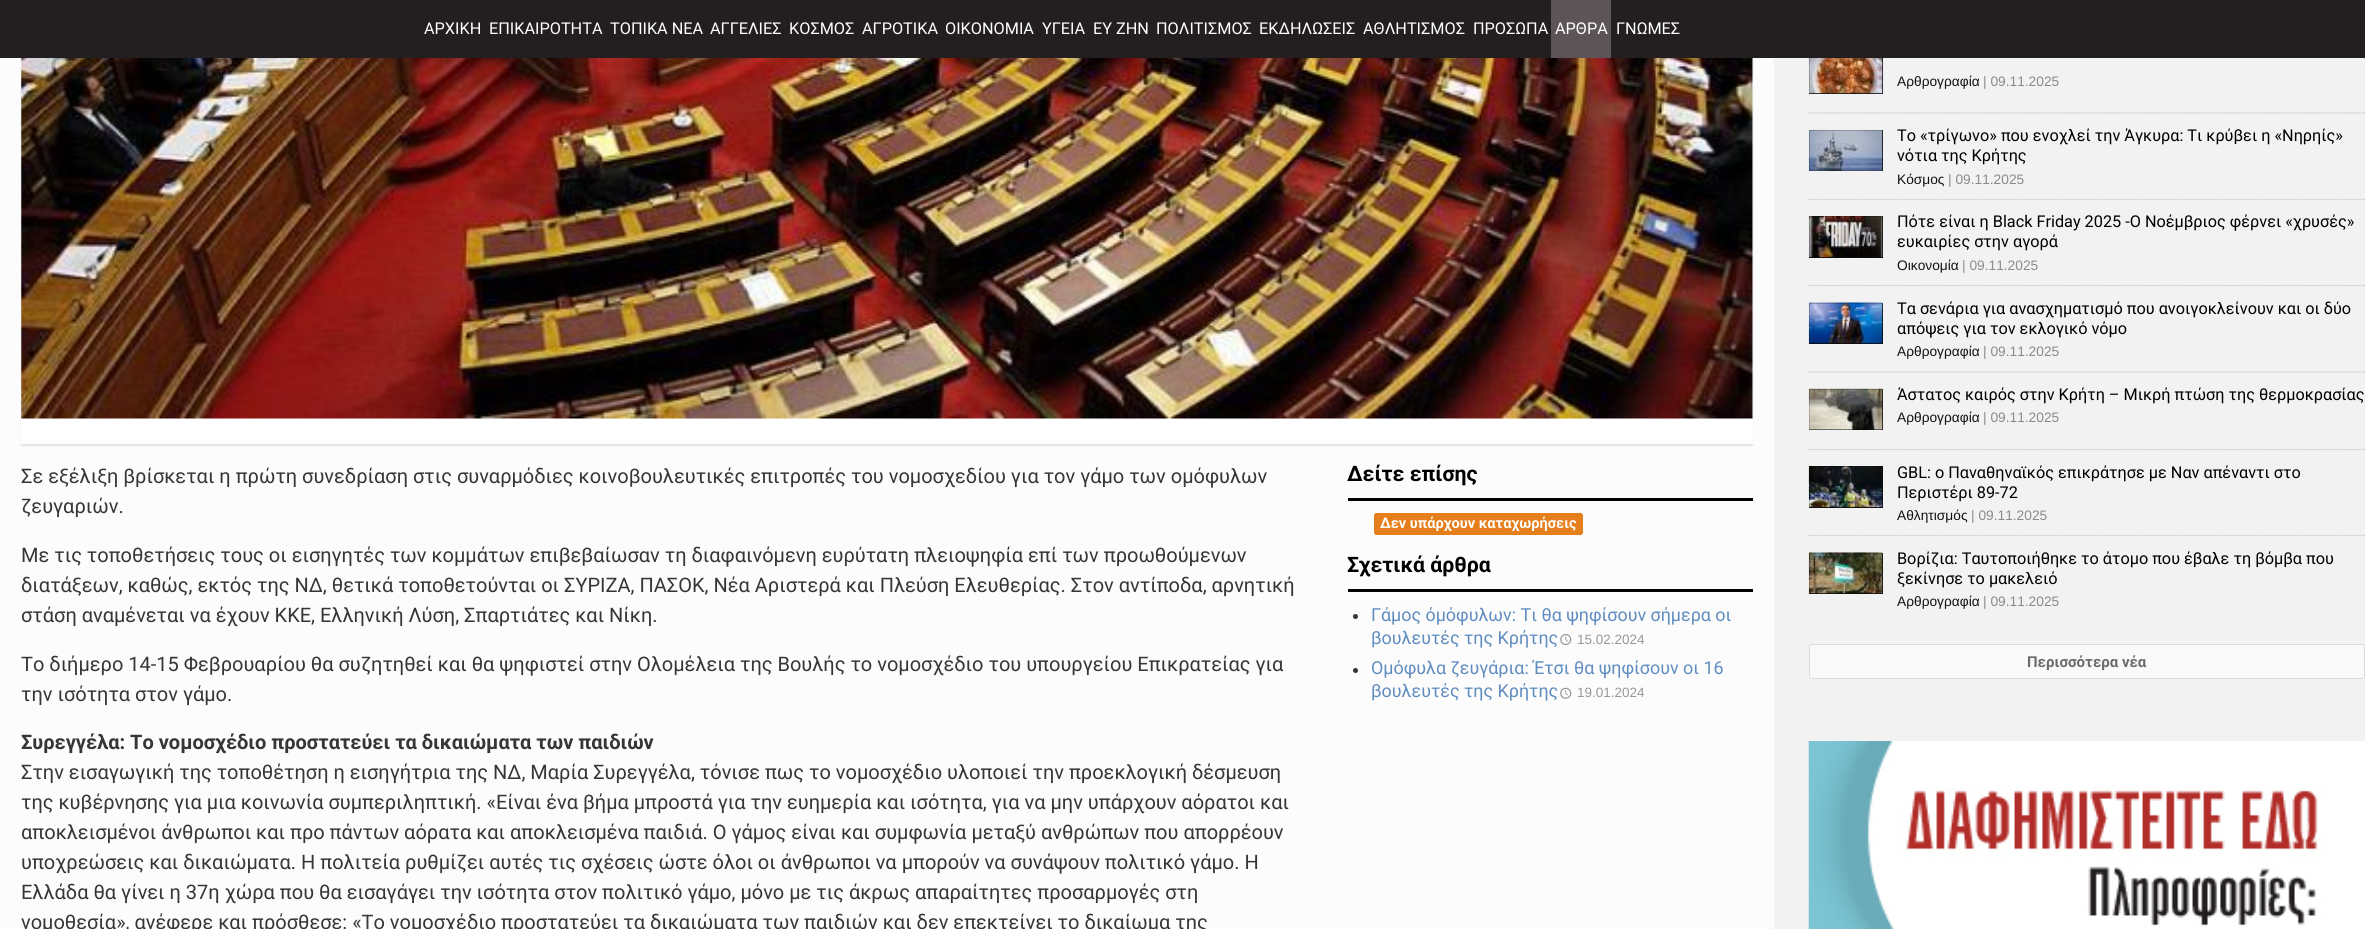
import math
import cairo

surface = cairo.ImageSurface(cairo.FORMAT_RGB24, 2365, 929)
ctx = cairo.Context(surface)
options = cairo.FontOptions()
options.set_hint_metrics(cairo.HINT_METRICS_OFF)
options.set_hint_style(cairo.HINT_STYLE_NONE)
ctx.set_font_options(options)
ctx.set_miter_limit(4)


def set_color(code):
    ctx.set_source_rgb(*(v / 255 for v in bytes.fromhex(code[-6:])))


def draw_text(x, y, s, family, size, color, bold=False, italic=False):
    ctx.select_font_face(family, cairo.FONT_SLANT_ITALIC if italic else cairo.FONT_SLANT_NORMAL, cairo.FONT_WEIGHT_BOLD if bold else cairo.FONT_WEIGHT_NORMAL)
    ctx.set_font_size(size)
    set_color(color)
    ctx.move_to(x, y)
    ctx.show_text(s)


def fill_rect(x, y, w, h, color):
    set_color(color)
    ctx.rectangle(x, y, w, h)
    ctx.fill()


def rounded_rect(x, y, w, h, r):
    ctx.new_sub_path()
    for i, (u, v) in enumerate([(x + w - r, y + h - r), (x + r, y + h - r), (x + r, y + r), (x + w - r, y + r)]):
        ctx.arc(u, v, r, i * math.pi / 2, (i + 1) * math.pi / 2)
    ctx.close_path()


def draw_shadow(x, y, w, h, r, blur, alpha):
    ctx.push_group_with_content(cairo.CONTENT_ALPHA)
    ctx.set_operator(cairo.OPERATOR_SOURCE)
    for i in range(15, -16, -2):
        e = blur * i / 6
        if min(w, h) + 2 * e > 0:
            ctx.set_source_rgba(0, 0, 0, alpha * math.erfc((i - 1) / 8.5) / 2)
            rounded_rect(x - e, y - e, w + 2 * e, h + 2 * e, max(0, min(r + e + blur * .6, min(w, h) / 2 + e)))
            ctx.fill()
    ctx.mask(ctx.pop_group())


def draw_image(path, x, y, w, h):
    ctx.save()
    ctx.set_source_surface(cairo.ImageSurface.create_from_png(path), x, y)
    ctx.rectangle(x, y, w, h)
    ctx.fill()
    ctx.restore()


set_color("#f2f2f2")
ctx.paint()
fill_rect(0, 58, 1774, 871, "#fcfcfc")
set_color("#000000")
draw_shadow(21, -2, 1732, 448, 0, 0.5, 0.1)
fill_rect(1809, 58, 74, 36, "#111111")
draw_image("assets/img4.png", 1808, 58, 75, 36)
ctx.rectangle(1809.5, 53.5, 73, 40)
ctx.set_source_rgba(0, 0, 0, 0.2)
ctx.set_line_width(1)
ctx.stroke()
fill_rect(0, 0, 2365, 58, "#231f20")
draw_text(424, 34, "ΑΡΧΙΚΗ", "Roboto", 16.25, "#ffffff")
draw_text(489, 34, "ΕΠΙΚΑΙΡΟΤΗΤΑ", "Roboto", 16.25, "#ffffff")
draw_text(610, 34, "ΤΟΠΙΚΑ ΝΕΑ", "Roboto", 16.25, "#ffffff")
draw_text(710, 34, "ΑΓΓΕΛΙΕΣ", "Roboto", 16.25, "#ffffff")
draw_text(789, 34, "ΚΟΣΜΟΣ", "Roboto", 16.25, "#ffffff")
draw_text(862, 34, "ΑΓΡΟΤΙΚΑ", "Roboto", 16.25, "#ffffff")
draw_text(945, 34, "OIKONOMIA", "Roboto", 16.25, "#ffffff")
draw_text(1042, 34, "ΥΓΕΙΑ", "Roboto", 16.25, "#ffffff")
draw_text(1093, 34, "EY ZHN", "Roboto", 16.25, "#ffffff")
draw_text(1156, 34, "ΠΟΛΙΤΙΣΜΟΣ", "Roboto", 16.25, "#ffffff")
draw_text(1259, 34, "ΕΚΔΗΛΩΣΕΙΣ", "Roboto", 16.25, "#ffffff")
draw_text(1363, 34, "ΑΘΛΗΤΙΣΜΟΣ", "Roboto", 16.25, "#ffffff")
draw_text(1473, 34, "ΠΡΟΣΩΠΑ", "Roboto", 16.25, "#ffffff")
fill_rect(1551, 0, 60, 58, "#5c5456")
draw_text(1555, 34, "ΑΡΘΡΑ", "Roboto", 16.25, "#ffffff")
draw_text(1616, 34, "ΓΝΩΜΕΣ", "Roboto", 16.25, "#ffffff")
fill_rect(21, 58, 1732, 386, "#ffffff")
draw_image("assets/img1.png", 21, 58, 1732, 361)
draw_text(21, 483, "Σε εξέλιξη βρίσκεται η πρώτη συνεδρίαση στις συναρμόδιες κοινοβουλευτικές επιτροπές του νομοσχεδίου για τον γάμο των ομόφυλων", "Roboto", 20, "#363635")
draw_text(21, 513, "ζευγαριών.", "Roboto", 20, "#363635")
draw_text(21, 562, "Με τις τοποθετήσεις τους οι εισηγητές των κομμάτων επιβεβαίωσαν τη διαφαινόμενη ευρύτατη πλειοψηφία επί των προωθούμενων", "Roboto", 20, "#363635")
draw_text(21, 592, "διατάξεων, καθώς, εκτός της ΝΔ, θετικά τοποθετούνται οι ΣΥΡΙΖΑ, ΠΑΣΟΚ, Νέα Αριστερά και Πλεύση Ελευθερίας. Στον αντίποδα, αρνητική", "Roboto", 20, "#363635")
draw_text(21, 622, "στάση αναμένεται να έχουν ΚΚΕ, Ελληνική Λύση, Σπαρτιάτες και Νίκη.", "Roboto", 20, "#363635")
draw_text(21, 671, "Το διήμερο 14-15 Φεβρουαρίου θα συζητηθεί και θα ψηφιστεί στην Ολομέλεια της Βουλής το νομοσχέδιο του υπουργείου Επικρατείας για", "Roboto", 20, "#363635")
draw_text(21, 701, "την ισότητα στον γάμο.", "Roboto", 20, "#363635")
draw_text(21, 749, "Συρεγγέλα: Το νομοσχέδιο προστατεύει τα δικαιώματα των παιδιών", "Roboto", 20, "#363635", bold=True)
draw_text(21, 779, "Στην εισαγωγική της τοποθέτηση η εισηγήτρια της ΝΔ, Μαρία Συρεγγέλα, τόνισε πως το νομοσχέδιο υλοποιεί την προεκλογική δέσμευση", "Roboto", 20, "#363635")
draw_text(21, 809, "της κυβέρνησης για μια κοινωνία συμπεριληπτική. «Είναι ένα βήμα μπροστά για την ευημερία και ισότητα, για να μην υπάρχουν αόρατοι και", "Roboto", 20, "#363635")
draw_text(21, 839, "αποκλεισμένοι άνθρωποι και προ πάντων αόρατα και αποκλεισμένα παιδιά. Ο γάμος είναι και συμφωνία μεταξύ ανθρώπων που απορρέουν", "Roboto", 20, "#363635")
draw_text(21, 869, "υποχρεώσεις και δικαιώματα. Η πολιτεία ρυθμίζει αυτές τις σχέσεις ώστε όλοι οι άνθρωποι να μπορούν να συνάψουν πολιτικό γάμο. Η", "Roboto", 20, "#363635")
draw_text(21, 899, "Ελλάδα θα γίνει η 37η χώρα που θα εισαγάγει την ισότητα στον πολιτικό γάμο, μόνο με τις άκρως απαραίτητες προσαρμογές στη", "Roboto", 20, "#363635")
draw_text(21, 929, "νομοθεσία», ανέφερε και πρόσθεσε: «Το νομοσχέδιο προστατεύει τα δικαιώματα των παιδιών και δεν επεκτείνει το δικαίωμα της", "Roboto", 20, "#363635")
fill_rect(1348, 498, 405, 3, "#000000")
draw_text(1347, 481, "Δείτε επίσης", "Roboto", 21.25, "#000000", bold=True)
set_color("#e57f1b")
rounded_rect(1374, 513, 209, 22, 2.5)
ctx.fill()
draw_text(1380, 528, "Δεν υπάρχουν καταχωρήσεις", "Roboto", 14.6, "#ffffff", bold=True)
fill_rect(1348, 589, 405, 3, "#000000")
draw_text(1347, 572, "Σχετικά άρθρα", "Roboto", 21.25, "#000000", bold=True)
set_color("#363635")
ctx.new_path()
ctx.arc(1355.5, 616.5, 2.5, 0, 2 * math.pi)
ctx.fill()
draw_text(1371, 621, "Γάμος όμόφυλων: Τι θα ψηφίσουν σήμερα οι", "Roboto", 17.9, "#608dc0")
draw_text(1371, 644, "βουλευτές της Κρήτης", "Roboto", 17.9, "#608dc0")
draw_image("assets/img2.png", 1560, 634, 12, 12)
draw_text(1577, 644, "15.02.2024", "Liberation Sans", 13.5, "#979797")
set_color("#363635")
ctx.new_path()
ctx.arc(1355.5, 670.5, 2.5, 0, 2 * math.pi)
ctx.fill()
draw_text(1371, 674, "Ομόφυλα ζευγάρια: Έτσι θα ψηφίσουν οι 16", "Roboto", 17.9, "#608dc0")
draw_text(1371, 697, "βουλευτές της Κρήτης", "Roboto", 17.9, "#608dc0")
draw_image("assets/img3.png", 1560, 687, 12, 12)
draw_text(1577, 697, "19.01.2024", "Liberation Sans", 13.5, "#979797")
ctx.new_path()
ctx.move_to(1809, 113)
ctx.line_to(2365, 113)
set_color("#c0bfbf")
ctx.set_line_width(1.2)
ctx.set_dash([1.25, 1.25])
ctx.stroke()
draw_text(1897, 86, "Αρθρογραφία", "Liberation Sans", 13.75, "#111111")
draw_text(1983, 86, "| 09.11.2025", "Liberation Sans", 13.75, "#8b8b8b")
ctx.new_path()
ctx.move_to(1809, 199.5)
ctx.line_to(2365, 199.5)
set_color("#c0bfbf")
ctx.stroke()
fill_rect(1882, 130, 1, 41, "#111111")
draw_image("assets/img5.png", 1808, 129, 75, 42)
ctx.rectangle(1809.5, 130.5, 73, 40)
ctx.set_source_rgba(0, 0, 0, 0.2)
ctx.set_line_width(1)
ctx.set_dash([])
ctx.stroke()
draw_text(1897, 141, "Το «τρίγωνο» που ενοχλεί την Άγκυρα: Τι κρύβει η «Νηρηίς»", "Roboto", 16.25, "#000000")
draw_text(1897, 161, "νότια της Κρήτης", "Roboto", 16.25, "#000000")
draw_text(1897, 184, "Κόσμος", "Liberation Sans", 13.75, "#111111")
draw_text(1948, 184, "| 09.11.2025", "Liberation Sans", 13.75, "#8b8b8b")
ctx.new_path()
ctx.move_to(1809, 285.5)
ctx.line_to(2365, 285.5)
set_color("#c0bfbf")
ctx.set_line_width(1.2)
ctx.set_dash([1.25, 1.25])
ctx.stroke()
fill_rect(1809, 216, 74, 42, "#111111")
draw_image("assets/img6.png", 1808, 216, 75, 42)
ctx.rectangle(1809.5, 216.5, 73, 41)
ctx.set_source_rgba(0, 0, 0, 0.2)
ctx.set_line_width(1)
ctx.set_dash([])
ctx.stroke()
draw_text(1897, 227, "Πότε είναι η Black Friday 2025 -Ο Νοέμβριος φέρνει «χρυσές»", "Roboto", 16.25, "#000000")
draw_text(1897, 247, "ευκαιρίες στην αγορά", "Roboto", 16.25, "#000000")
draw_text(1897, 270, "Οικονομία", "Liberation Sans", 13.75, "#111111")
draw_text(1962, 270, "| 09.11.2025", "Liberation Sans", 13.75, "#8b8b8b")
ctx.new_path()
ctx.move_to(1809, 372)
ctx.line_to(2365, 372)
set_color("#c0bfbf")
ctx.set_line_width(1.2)
ctx.set_dash([1.25, 1.25])
ctx.stroke()
fill_rect(1809, 303, 74, 41, "#111111")
draw_image("assets/img7.png", 1808, 302, 75, 42)
ctx.rectangle(1809.5, 303.5, 73, 40)
ctx.set_source_rgba(0, 0, 0, 0.2)
ctx.set_line_width(1)
ctx.set_dash([])
ctx.stroke()
draw_text(1897, 314, "Τα σενάρια για ανασχηματισμό που ανοιγοκλείνουν και οι δύο", "Roboto", 16.25, "#000000")
draw_text(1897, 334, "απόψεις για τον εκλογικό νόμο", "Roboto", 16.25, "#000000")
draw_text(1897, 356, "Αρθρογραφία", "Liberation Sans", 13.75, "#111111")
draw_text(1983, 356, "| 09.11.2025", "Liberation Sans", 13.75, "#8b8b8b")
ctx.new_path()
ctx.move_to(1809, 449.5)
ctx.line_to(2365, 449.5)
set_color("#c0bfbf")
ctx.set_line_width(1.2)
ctx.set_dash([1.25, 1.25])
ctx.stroke()
fill_rect(1809, 389, 74, 41, "#111111")
draw_image("assets/img8.png", 1808, 388, 75, 42)
ctx.rectangle(1809.5, 389.5, 73, 40)
ctx.set_source_rgba(0, 0, 0, 0.2)
ctx.set_line_width(1)
ctx.set_dash([])
ctx.stroke()
draw_text(1897, 400, "Άστατος καιρός στην Κρήτη – Μικρή πτώση της θερμοκρασίας", "Roboto", 16.25, "#000000")
draw_text(1897, 422, "Αρθρογραφία", "Liberation Sans", 13.75, "#111111")
draw_text(1983, 422, "| 09.11.2025", "Liberation Sans", 13.75, "#8b8b8b")
ctx.new_path()
ctx.move_to(1809, 535.5)
ctx.line_to(2365, 535.5)
set_color("#c0bfbf")
ctx.set_line_width(1.2)
ctx.set_dash([1.25, 1.25])
ctx.stroke()
fill_rect(1809, 466, 74, 42, "#111111")
draw_image("assets/img9.png", 1808, 466, 75, 42)
ctx.rectangle(1809.5, 466.5, 73, 41)
ctx.set_source_rgba(0, 0, 0, 0.2)
ctx.set_line_width(1)
ctx.set_dash([])
ctx.stroke()
draw_text(1897, 478, "GBL: ο Παναθηναϊκός επικράτησε με Ναν απέναντι στο", "Roboto", 16.25, "#000000")
draw_text(1897, 498, "Περιστέρι 89-72", "Roboto", 16.25, "#000000")
draw_text(1897, 520, "Αθλητισμός", "Liberation Sans", 13.75, "#111111")
draw_text(1971, 520, "| 09.11.2025", "Liberation Sans", 13.75, "#8b8b8b")
fill_rect(1809, 553, 74, 41, "#111111")
draw_image("assets/img10.png", 1808, 552, 75, 42)
ctx.rectangle(1809.5, 553.5, 73, 40)
ctx.set_source_rgba(0, 0, 0, 0.2)
ctx.stroke()
draw_text(1897, 564, "Βορίζια: Ταυτοποιήθηκε το άτομο που έβαλε τη βόμβα που", "Roboto", 16.25, "#000000")
draw_text(1897, 584, "ξεκίνησε το μακελειό", "Roboto", 16.25, "#000000")
draw_text(1897, 606, "Αρθρογραφία", "Liberation Sans", 13.75, "#111111")
draw_text(1983, 606, "| 09.11.2025", "Liberation Sans", 13.75, "#8b8b8b")
set_color("#f9f9f9")
rounded_rect(1809.5, 644.5, 555, 34, 2)
ctx.fill_preserve()
set_color("#dbdbdb")
ctx.stroke()
draw_text(2027, 667, "Περισσότερα νέα", "Roboto", 15, "#6b6b6b", bold=True)
draw_image("assets/img11.png", 1808, 741, 557, 188)
surface.write_to_png("output.png")
